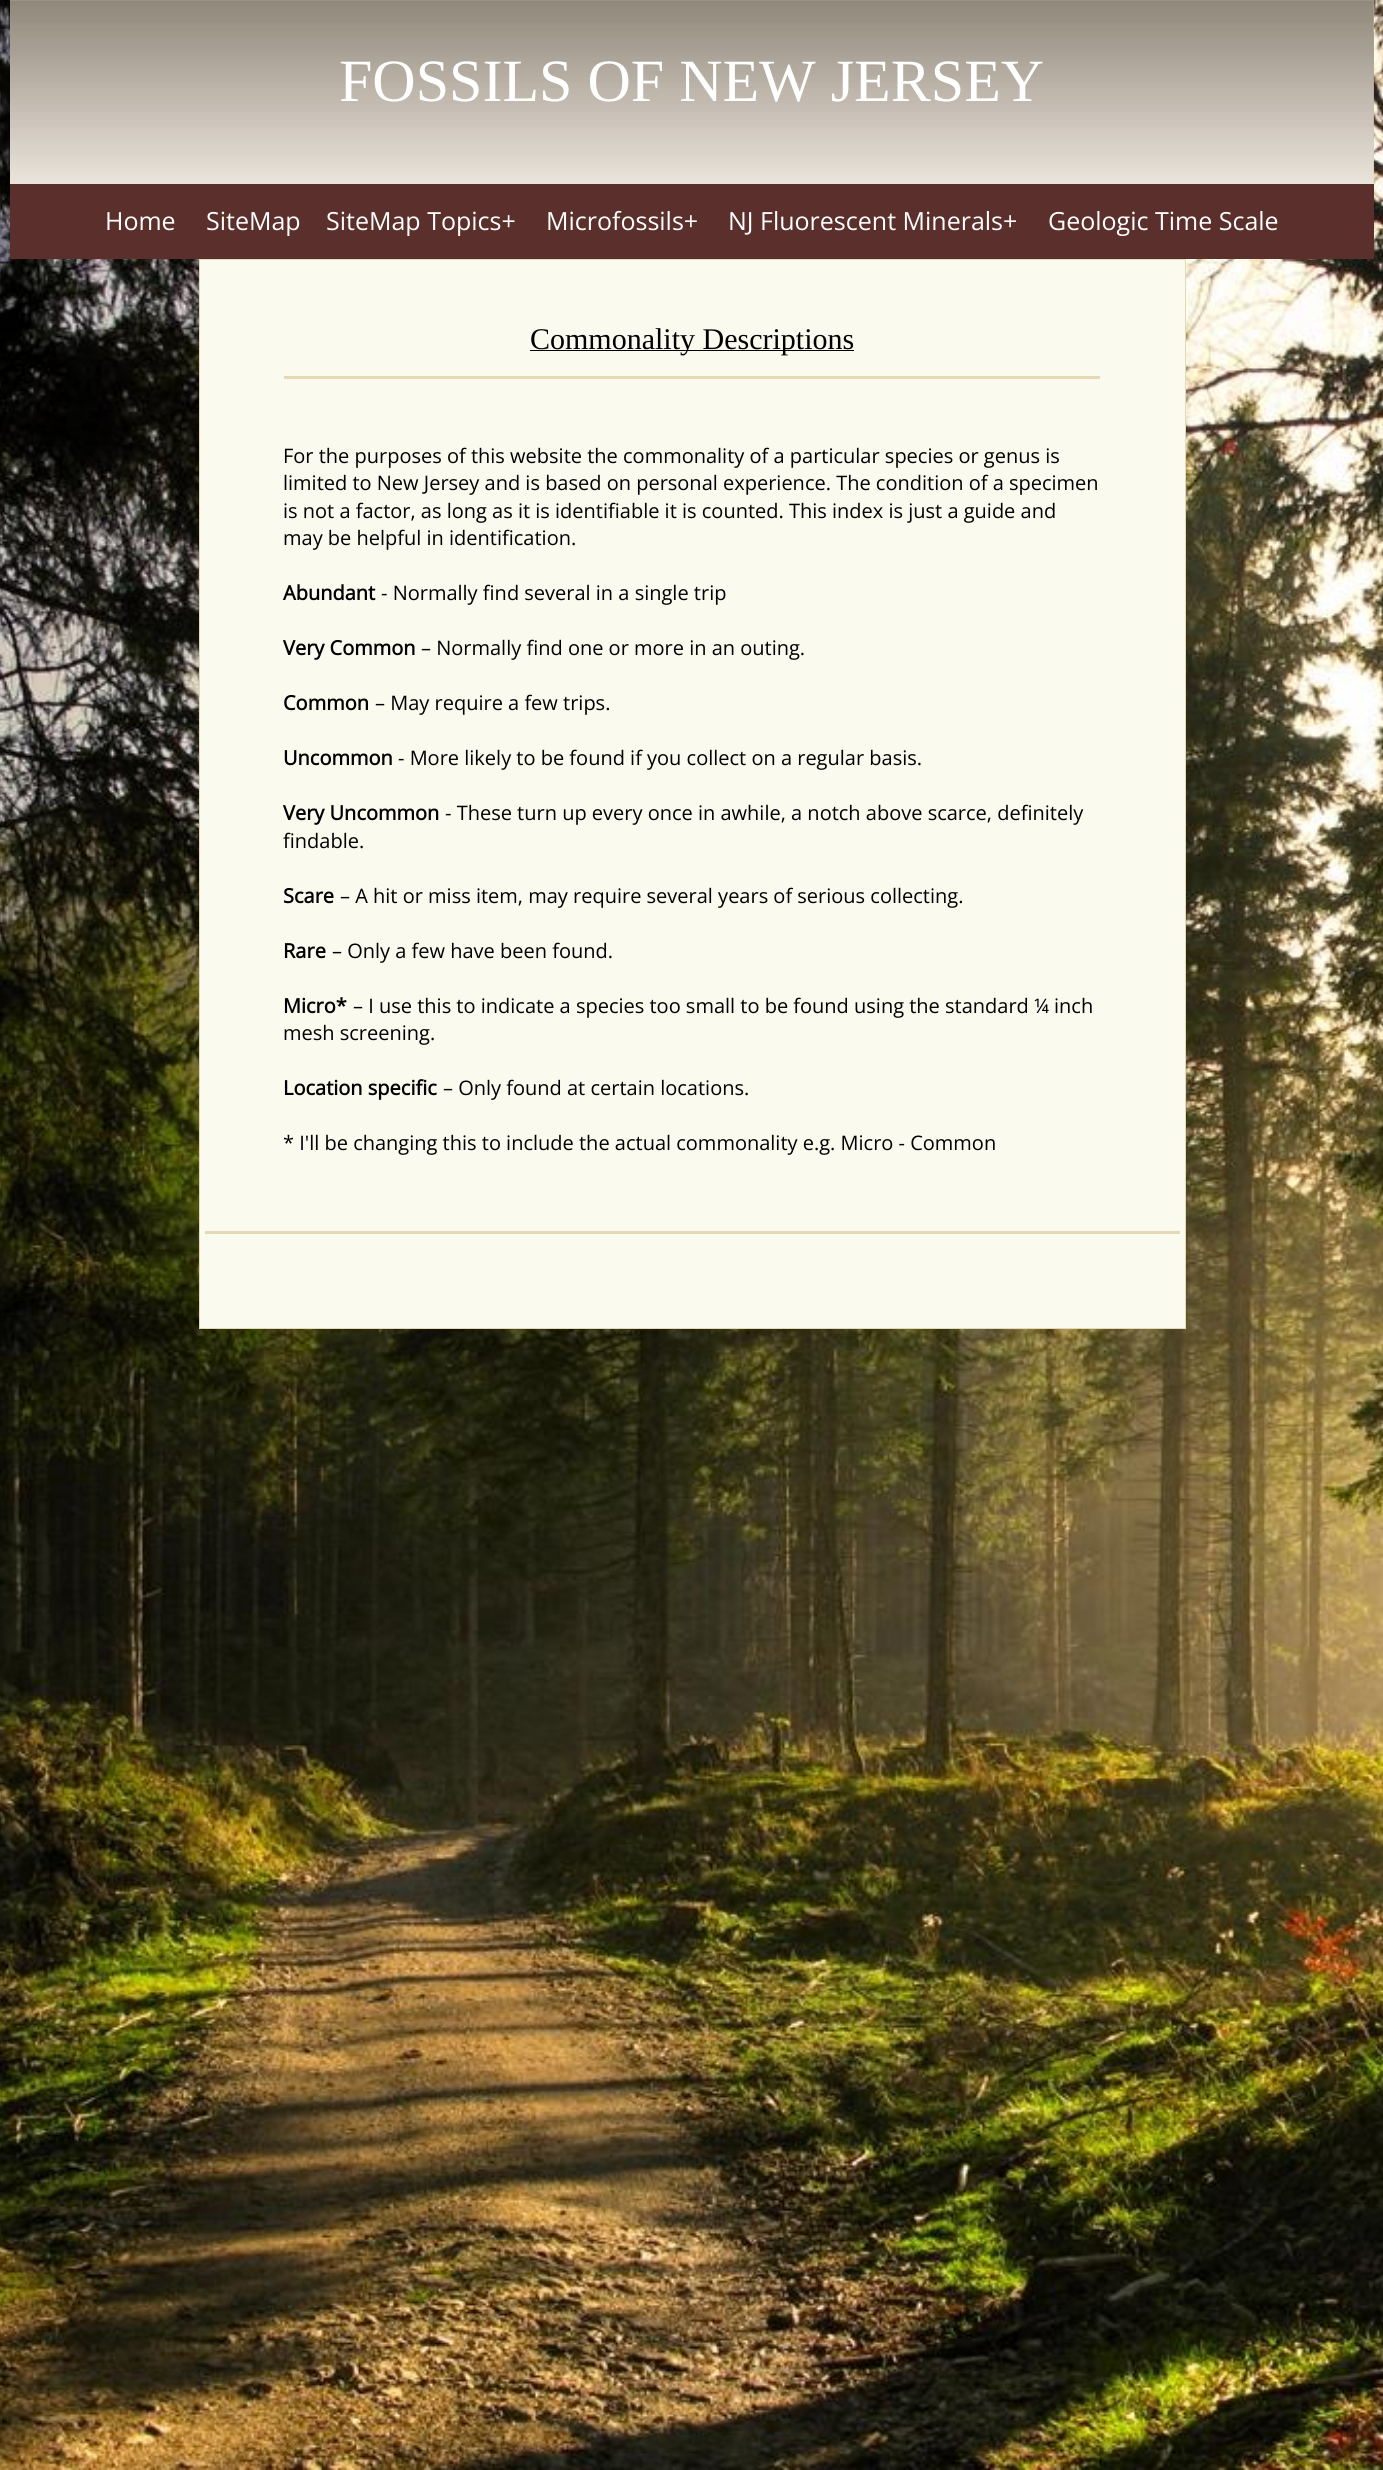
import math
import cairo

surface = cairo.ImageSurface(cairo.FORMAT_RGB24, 1383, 2470)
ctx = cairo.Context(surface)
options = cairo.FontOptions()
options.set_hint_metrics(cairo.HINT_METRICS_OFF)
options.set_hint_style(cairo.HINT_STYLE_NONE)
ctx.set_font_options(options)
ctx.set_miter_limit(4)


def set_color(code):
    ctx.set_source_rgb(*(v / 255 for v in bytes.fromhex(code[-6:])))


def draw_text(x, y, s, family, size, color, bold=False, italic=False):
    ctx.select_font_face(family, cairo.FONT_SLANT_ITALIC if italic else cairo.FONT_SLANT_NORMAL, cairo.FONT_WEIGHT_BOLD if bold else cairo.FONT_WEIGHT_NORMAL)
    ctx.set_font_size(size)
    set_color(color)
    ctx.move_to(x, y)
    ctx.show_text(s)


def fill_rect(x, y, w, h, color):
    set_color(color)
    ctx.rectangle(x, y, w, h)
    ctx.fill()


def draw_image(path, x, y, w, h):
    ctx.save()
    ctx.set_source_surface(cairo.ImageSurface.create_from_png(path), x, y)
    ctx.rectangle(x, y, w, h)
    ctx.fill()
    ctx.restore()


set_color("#ffffff")
ctx.paint()
draw_image("assets/img1.png", 0, 0, 1383, 2470)
draw_image("assets/img2.png", 1373, 0, 1, 184)
draw_image("assets/img3.png", 10, 0, 1364, 184)
draw_text(339, 101, "FOSSILS OF NEW JERSEY", "Liberation Serif", 60, "#ffffff")
fill_rect(10, 184, 1364, 75, "#5b2f2b")
draw_text(105, 230, "Home", "Open Sans", 25, "#ffffff")
draw_text(206, 230, "SiteMap", "Open Sans", 25, "#ffffff")
draw_text(326, 230, "SiteMap Topics+", "Open Sans", 25, "#ffffff")
draw_text(546, 230, "Microfossils+", "Open Sans", 25, "#ffffff")
draw_text(728, 230, "NJ Fluorescent Minerals+", "Open Sans", 25, "#ffffff")
draw_text(1048, 230, "Geologic Time Scale", "Open Sans", 25, "#ffffff")
fill_rect(200, 260, 985, 1068, "#fafaee")
fill_rect(199, 259, 987, 1, "#e4d9b4")
fill_rect(1185, 259, 1, 1070, "#e4d9b4")
fill_rect(199, 1328, 987, 1, "#e4d9b4")
fill_rect(199, 259, 1, 1070, "#e4d9b4")
fill_rect(530, 350, 324, 1, "#000000")
draw_text(530, 349, "Commonality Descriptions", "Liberation Serif", 30, "#000000")
fill_rect(284, 376, 816, 3, "#e4d9b4")
draw_text(283, 463, "For the purposes of this website the commonality of a particular species or genus is", "Open Sans", 20, "#000000")
draw_text(283, 490, "limited to New Jersey and is based on personal experience. The condition of a specimen", "Open Sans", 20, "#000000")
draw_text(283, 518, "is not a factor, as long as it is identifiable it is counted. This index is just a guide and", "Open Sans", 20, "#000000")
draw_text(283, 545, "may be helpful in identification.", "Open Sans", 20, "#000000")
draw_text(283, 600, "Abundant", "Open Sans", 20, "#000000", bold=True)
draw_text(381, 600, "- Normally find several in a single trip", "Open Sans", 20, "#000000")
draw_text(283, 655, "Very Common", "Open Sans", 20, "#000000", bold=True)
draw_text(421, 655, "– Normally find one or more in an outing.", "Open Sans", 20, "#000000")
draw_text(283, 710, "Common", "Open Sans", 20, "#000000", bold=True)
draw_text(375, 710, "– May require a few trips.", "Open Sans", 20, "#000000")
draw_text(283, 765, "Uncommon", "Open Sans", 20, "#000000", bold=True)
draw_text(398, 765, "- More likely to be found if you collect on a regular basis.", "Open Sans", 20, "#000000")
draw_text(283, 820, "Very Uncommon", "Open Sans", 20, "#000000", bold=True)
draw_text(445, 820, "- These turn up every once in awhile, a notch above scarce, definitely", "Open Sans", 20, "#000000")
draw_text(283, 848, "findable.", "Open Sans", 20, "#000000")
draw_text(283, 903, "Scare", "Open Sans", 20, "#000000", bold=True)
draw_text(340, 903, "– A hit or miss item, may require several years of serious collecting.", "Open Sans", 20, "#000000")
draw_text(283, 958, "Rare", "Open Sans", 20, "#000000", bold=True)
draw_text(332, 958, "– Only a few have been found.", "Open Sans", 20, "#000000")
draw_text(283, 1013, "Micro*", "Open Sans", 20, "#000000", bold=True)
draw_text(353, 1013, "– I use this to indicate a species too small to be found using the standard ¼ inch", "Open Sans", 20, "#000000")
draw_text(283, 1040, "mesh screening.", "Open Sans", 20, "#000000")
draw_text(283, 1095, "Location specific", "Open Sans", 20, "#000000", bold=True)
draw_text(443, 1095, "– Only found at certain locations.", "Open Sans", 20, "#000000")
draw_text(283, 1150, "* I'll be changing this to include the actual commonality e.g. Micro - Common", "Open Sans", 20, "#000000")
fill_rect(205, 1231, 975, 3, "#e4d9b4")
surface.write_to_png("output.png")
